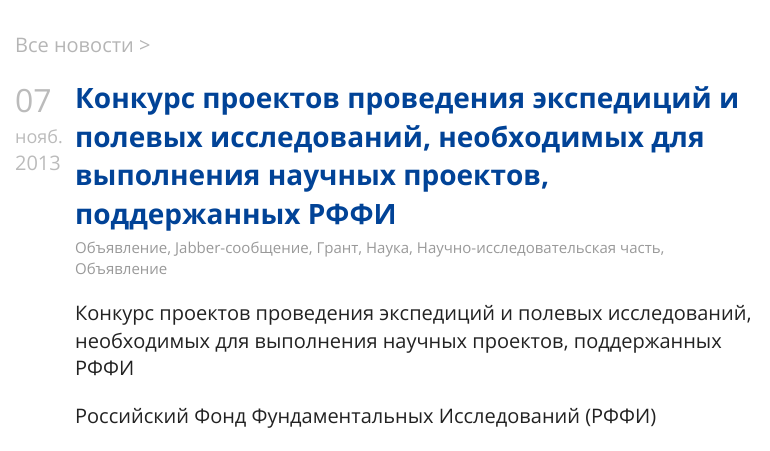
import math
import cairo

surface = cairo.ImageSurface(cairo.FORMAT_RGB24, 770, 451)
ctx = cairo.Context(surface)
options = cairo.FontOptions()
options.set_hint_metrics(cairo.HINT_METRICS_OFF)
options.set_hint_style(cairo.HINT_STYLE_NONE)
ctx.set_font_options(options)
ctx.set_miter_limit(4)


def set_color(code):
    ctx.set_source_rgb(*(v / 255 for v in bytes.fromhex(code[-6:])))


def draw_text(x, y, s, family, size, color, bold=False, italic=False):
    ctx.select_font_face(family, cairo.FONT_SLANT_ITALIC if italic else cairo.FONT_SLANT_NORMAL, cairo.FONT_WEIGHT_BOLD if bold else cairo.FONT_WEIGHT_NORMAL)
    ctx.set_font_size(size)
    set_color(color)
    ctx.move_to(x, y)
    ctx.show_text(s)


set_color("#ffffff")
ctx.paint()
draw_text(15, 52, "Все новости >", "Open Sans", 20, "#b5b5b5")
draw_text(15, 112, "07", "Open Sans", 32, "#bbbbbb")
draw_text(15, 143, "нояб.", "Open Sans", 18, "#bbbbbb")
draw_text(15, 170, "2013", "Open Sans", 20, "#bbbbbb")
draw_text(75, 108, "Конкурс проектов проведения экспедиций и", "Open Sans", 28, "#014397", bold=True)
draw_text(75, 147, "полевых исследований, необходимых для", "Open Sans", 28, "#014397", bold=True)
draw_text(75, 185, "выполнения научных проектов,", "Open Sans", 28, "#014397", bold=True)
draw_text(75, 224, "поддержанных РФФИ", "Open Sans", 28, "#014397", bold=True)
draw_text(75, 253, "Объявление, Jabber-сообщение, Грант, Наука, Научно-исследовательская часть,", "Open Sans", 15, "#999999")
draw_text(75, 274, "Объявление", "Open Sans", 15, "#999999")
draw_text(75, 320, "Конкурс проектов проведения экспедиций и полевых исследований,", "Open Sans", 20, "#222222")
draw_text(75, 348, "необходимых для выполнения научных проектов, поддержанных", "Open Sans", 20, "#222222")
draw_text(75, 375, "РФФИ", "Open Sans", 20, "#222222")
draw_text(75, 423, "Российский Фонд Фундаментальных Исследований (РФФИ)", "Open Sans", 20, "#222222")
surface.write_to_png("output.png")
